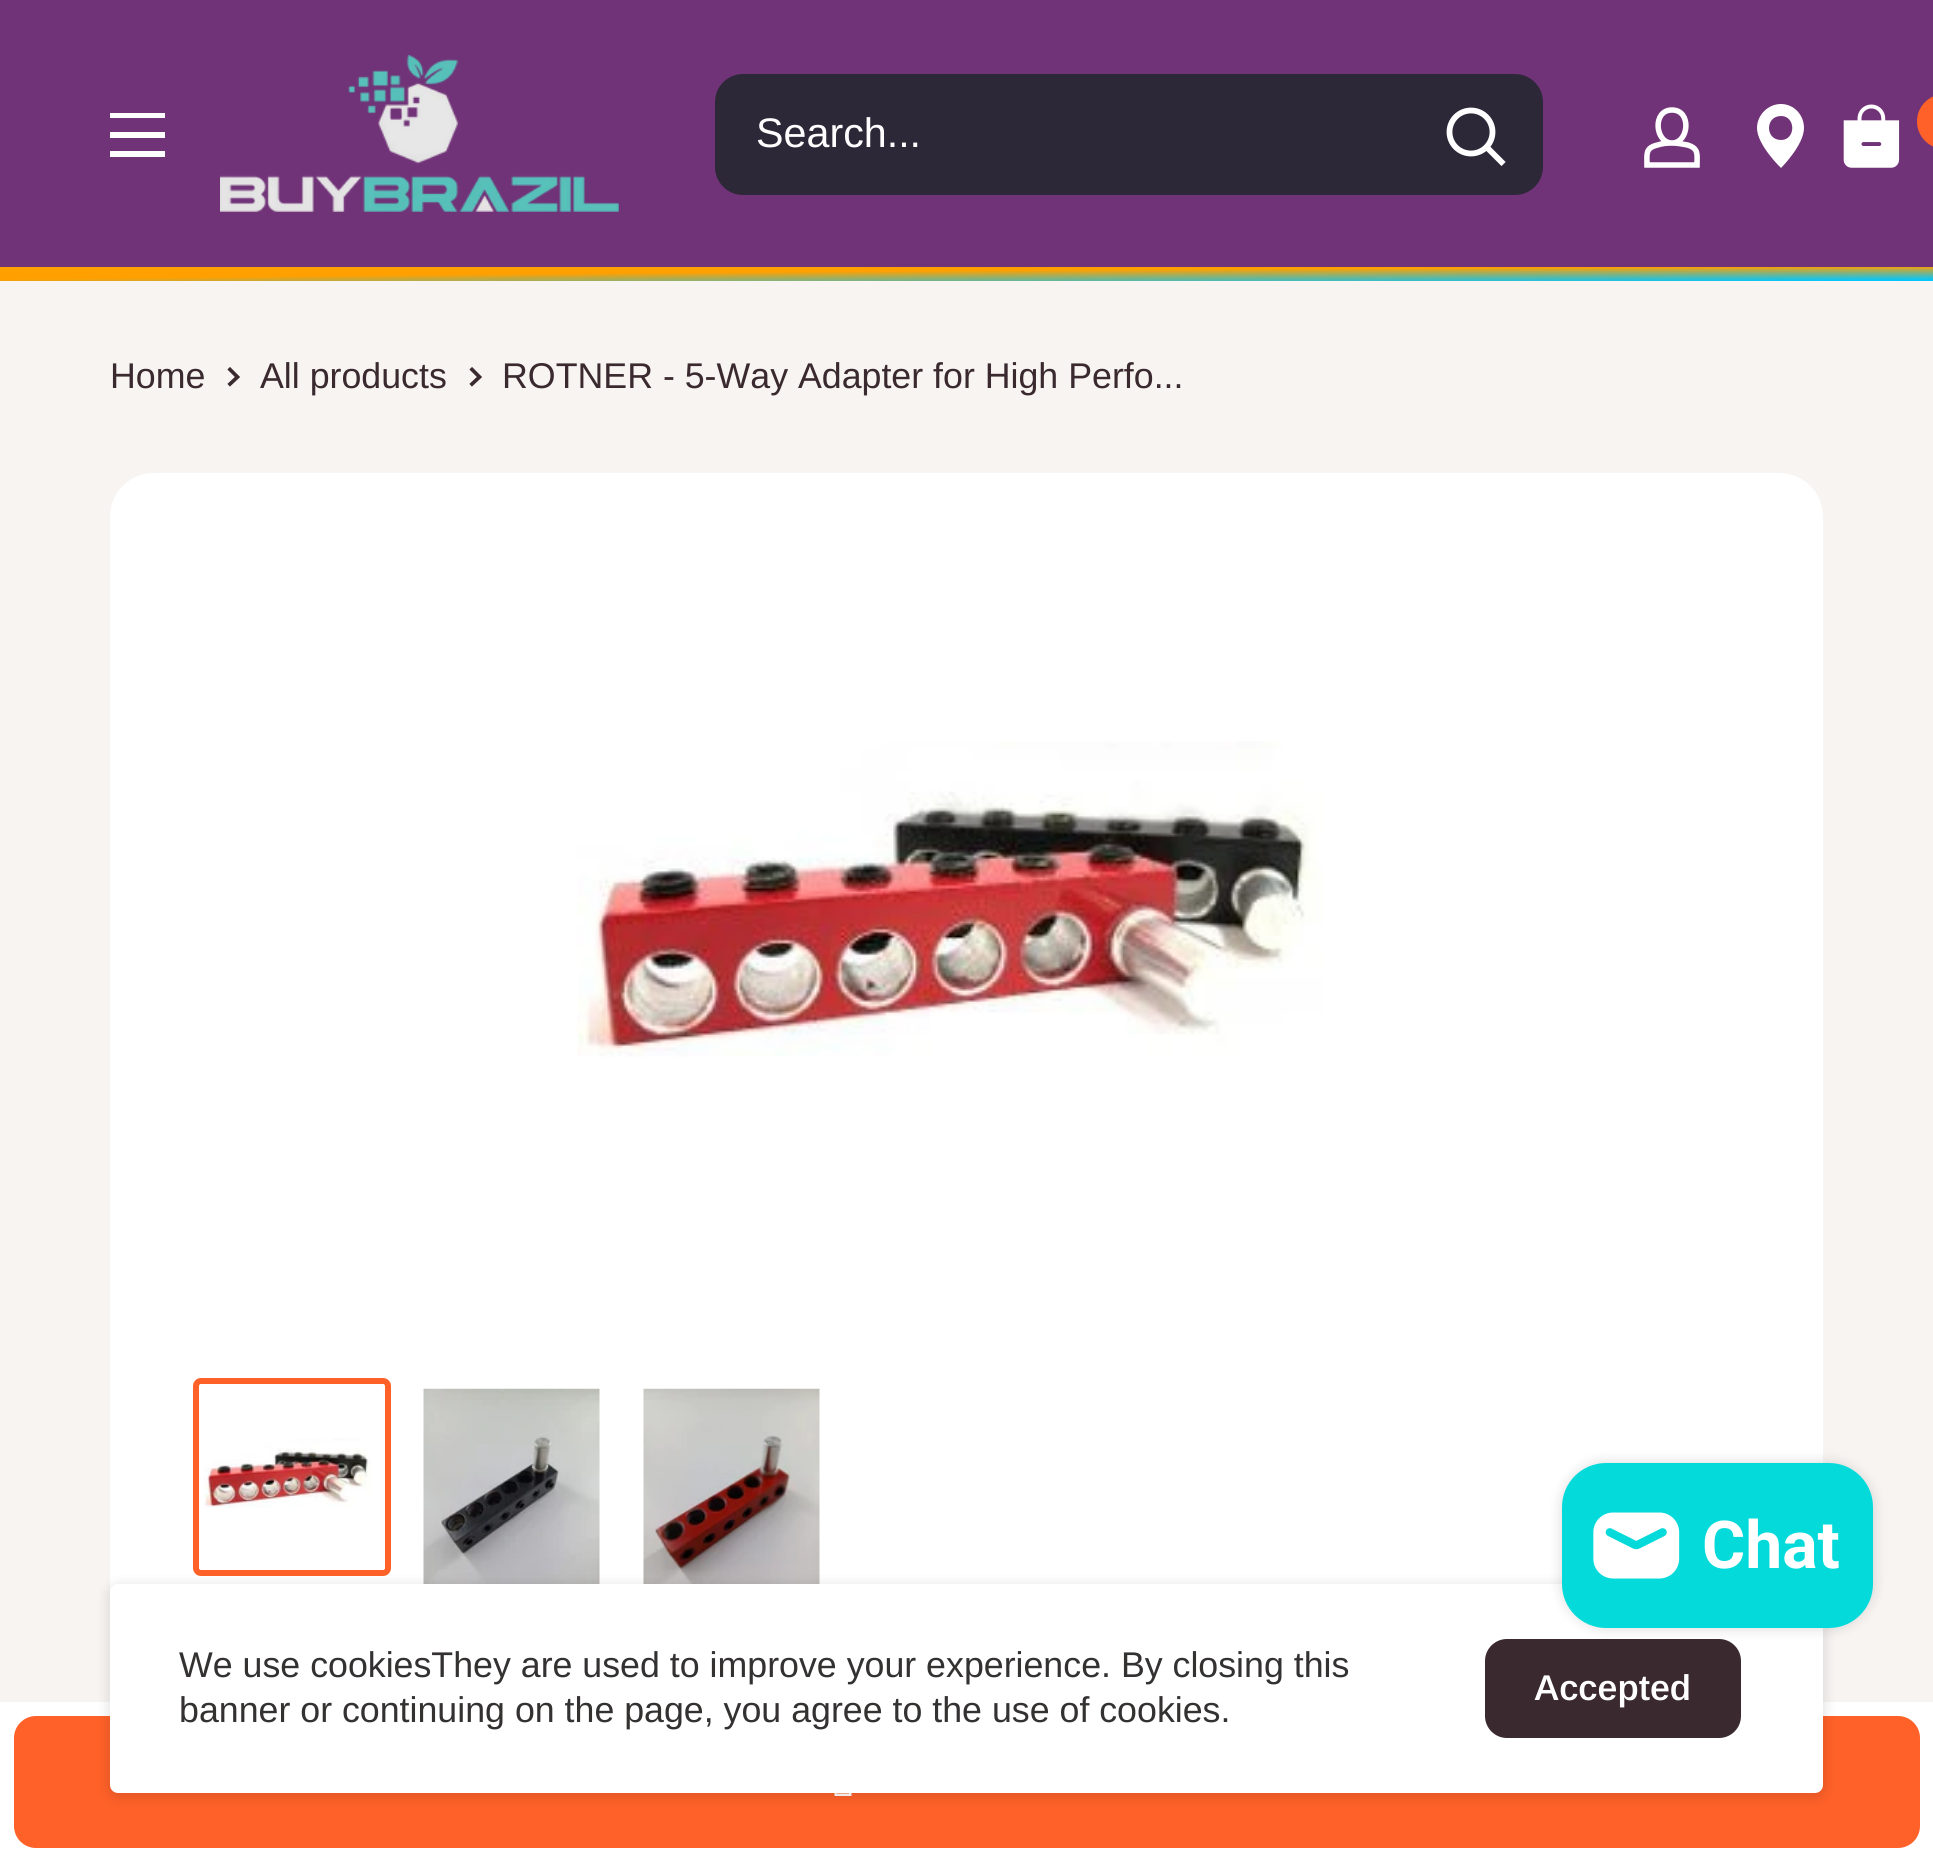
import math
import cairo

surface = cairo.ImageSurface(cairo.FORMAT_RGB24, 1933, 1861)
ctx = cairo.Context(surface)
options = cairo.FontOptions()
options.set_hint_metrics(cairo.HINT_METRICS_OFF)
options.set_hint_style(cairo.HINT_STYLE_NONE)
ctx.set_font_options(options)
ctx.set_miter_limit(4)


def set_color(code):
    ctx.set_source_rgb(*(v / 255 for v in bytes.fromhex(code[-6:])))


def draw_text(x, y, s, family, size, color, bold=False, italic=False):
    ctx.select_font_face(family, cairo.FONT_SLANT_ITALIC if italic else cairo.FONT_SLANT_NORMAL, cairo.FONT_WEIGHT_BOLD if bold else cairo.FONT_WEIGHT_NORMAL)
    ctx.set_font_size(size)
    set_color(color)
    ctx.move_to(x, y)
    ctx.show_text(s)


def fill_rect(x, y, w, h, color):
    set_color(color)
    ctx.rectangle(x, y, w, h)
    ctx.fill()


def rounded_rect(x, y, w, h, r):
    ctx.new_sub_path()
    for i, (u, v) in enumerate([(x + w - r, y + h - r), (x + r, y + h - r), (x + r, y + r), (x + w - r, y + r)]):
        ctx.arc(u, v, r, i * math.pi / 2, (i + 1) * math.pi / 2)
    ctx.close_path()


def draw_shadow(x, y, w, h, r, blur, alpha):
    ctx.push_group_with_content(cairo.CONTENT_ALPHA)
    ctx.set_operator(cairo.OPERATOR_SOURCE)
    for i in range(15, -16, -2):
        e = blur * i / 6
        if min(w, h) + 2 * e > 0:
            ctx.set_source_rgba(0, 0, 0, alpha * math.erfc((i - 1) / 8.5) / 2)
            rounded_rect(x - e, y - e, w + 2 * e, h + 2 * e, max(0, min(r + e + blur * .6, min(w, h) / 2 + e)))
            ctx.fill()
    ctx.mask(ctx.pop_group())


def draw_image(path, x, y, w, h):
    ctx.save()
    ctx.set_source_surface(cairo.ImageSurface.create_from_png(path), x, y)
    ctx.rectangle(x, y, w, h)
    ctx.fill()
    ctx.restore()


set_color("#f7f4f2")
ctx.paint()
fill_rect(0, 0, 1933, 267, "#713378")
set_color("#ffffff")
ctx.set_fill_rule(cairo.FILL_RULE_EVEN_ODD)
ctx.new_path()
ctx.move_to(110, 151)
ctx.line_to(165, 151)
ctx.line_to(165, 157)
ctx.line_to(110, 157)
ctx.close_path()
ctx.move_to(110, 113)
ctx.line_to(165, 113)
ctx.line_to(165, 118)
ctx.line_to(110, 118)
ctx.close_path()
ctx.move_to(110, 132)
ctx.line_to(165, 132)
ctx.line_to(165, 138)
ctx.line_to(110, 138)
ctx.close_path()
ctx.fill()
draw_image("assets/img1.png", 220, 55, 399, 157)
set_color("#2d2838")
rounded_rect(715, 74, 828, 121, 28)
ctx.fill()
draw_text(756, 147, "Search...", "Arimo", 41.25, "#ffffff")
ctx.new_path()
ctx.move_to(1501.5, 162)
ctx.line_to(1487, 147.5)
ctx.set_line_width(5.8)
ctx.set_line_cap(cairo.LINE_CAP_SQUARE)
ctx.stroke()
ctx.arc(1471, 132, 21.5, 0, 2 * math.pi)
ctx.set_line_cap(cairo.LINE_CAP_BUTT)
ctx.stroke()
ctx.new_path()
ctx.move_to(1672, 143)
ctx.curve_to(1677, 143, 1682.5, 144, 1687.5, 145)
ctx.curve_to(1699, 148.5, 1697, 154.5, 1697, 165)
ctx.line_to(1647, 165)
ctx.curve_to(1647, 154, 1645, 148, 1657.5, 145)
ctx.curve_to(1662, 143.5, 1667, 143, 1672, 143)
ctx.close_path()
ctx.move_to(1672, 143)
ctx.curve_to(1655, 143, 1652, 110, 1672, 110)
ctx.curve_to(1692, 110, 1689, 143, 1672, 143)
ctx.close_path()
ctx.set_line_width(5.5)
ctx.stroke()
ctx.set_fill_rule(cairo.FILL_RULE_WINDING)
ctx.new_path()
ctx.move_to(1781, 168)
ctx.curve_to(1781, 168, 1804, 145, 1804, 128)
ctx.curve_to(1804, 115, 1794, 104, 1781, 104)
ctx.curve_to(1768, 104, 1757, 115, 1757, 128)
ctx.curve_to(1757, 145, 1781, 168, 1781, 168)
ctx.close_path()
ctx.move_to(1781, 140)
ctx.curve_to(1765, 140, 1765, 116, 1781, 116)
ctx.curve_to(1796, 116, 1796, 140, 1781, 140)
ctx.close_path()
ctx.fill()
draw_image("assets/img2.png", 1843, 104, 57, 64)
set_color("#ff6128")
rounded_rect(1917, 94, 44, 55, 27.5)
ctx.fill()
gradient = cairo.RadialGradient(0, 0, 0, 0, 0, 1)
gradient.set_matrix(cairo.Matrix(1 / 5468, 0, 0, 1 / 39, -1 * 3867 / 5468, -1 * 294 / 39))
gradient.add_color_stop_rgba(0.2, 0, 1, 0.282, 1)
gradient.add_color_stop_rgba(0.5, 0.004, 0.776, 1, 1)
gradient.add_color_stop_rgba(0.8, 1, 0.627, 0, 1)
ctx.set_source(gradient)
ctx.rectangle(0, 267, 1933, 14)
ctx.fill()
draw_text(110, 388, "Home", "Arimo", 35.75, "#3a2a2f")
ctx.new_path()
ctx.move_to(230, 369.5)
ctx.line_to(237.5, 377)
ctx.line_to(230, 384)
ctx.set_line_width(3.7)
ctx.set_line_cap(cairo.LINE_CAP_SQUARE)
ctx.stroke()
draw_text(260, 388, "All products", "Arimo", 35.75, "#3a2a2f")
ctx.new_path()
ctx.move_to(472, 369.5)
ctx.line_to(479.5, 377)
ctx.line_to(472, 384)
ctx.stroke()
draw_text(502, 388, "ROTNER - 5-Way Adapter for High Perfo...", "Arimo", 35.75, "#3a2a2f")
set_color("#ffffff")
ctx.new_path()
ctx.move_to(154, 473)
ctx.line_to(1779, 473)
ctx.curve_to(1803.5, 473, 1823, 492.5, 1823, 517)
ctx.line_to(1823, 1724)
ctx.line_to(110, 1724)
ctx.line_to(110, 517)
ctx.curve_to(110, 492.5, 129.5, 473, 154, 473)
ctx.close_path()
ctx.fill()
draw_image("assets/img3.png", 577, 741, 746, 316)
rounded_rect(196, 1381, 192, 192, 5)
set_color("#ff6128")
ctx.set_line_width(6)
ctx.set_line_cap(cairo.LINE_CAP_BUTT)
ctx.stroke()
draw_image("assets/img4.png", 204, 1438, 167, 70)
draw_image("assets/img5.png", 423, 1388, 177, 196)
draw_image("assets/img6.png", 643, 1388, 177, 196)
fill_rect(0, 1702, 1933, 159, "#ffffff")
set_color("#ff6128")
rounded_rect(14, 1716, 1906, 132, 22)
ctx.fill()
set_color("#ffffff")
ctx.new_path()
ctx.move_to(834.5, 1796)
ctx.line_to(834.5, 1766.5)
ctx.line_to(851.5, 1766.5)
ctx.line_to(851.5, 1796)
ctx.close_path()
ctx.move_to(836.5, 1793.5)
ctx.line_to(849, 1793.5)
ctx.line_to(849, 1768.5)
ctx.line_to(836.5, 1768.5)
ctx.close_path()
ctx.fill()
set_color("#000000")
draw_shadow(107, 1584, 1719, 215, 11, 5.5, 0.1)
set_color("#ffffff")
rounded_rect(110, 1584, 1713, 209, 8)
ctx.fill()
set_color("#3a2a2f")
rounded_rect(1485, 1639, 256, 99, 22)
ctx.fill()
set_color("#000000")
draw_shadow(1562, 1463, 311, 165, 44, 7, 0.15)
set_color("#05dada")
rounded_rect(1562, 1463, 311, 165, 44)
ctx.fill()
draw_image("assets/img7.png", 1593, 1512, 87, 67)
draw_text(1702, 1568, "Chat", "Roboto", 66, "#ffffff", bold=True)
draw_text(179, 1677, "We use cookiesThey are used to improve your experience. By closing this", "Arimo", 35.75, "#343131")
draw_text(179, 1722, "banner or continuing on the page, you agree to the use of cookies.", "Arimo", 35.75, "#343131")
draw_text(1534, 1700, "Accepted", "Arimo SemiBold", 35.75, "#ffffff")
surface.write_to_png("output.png")
